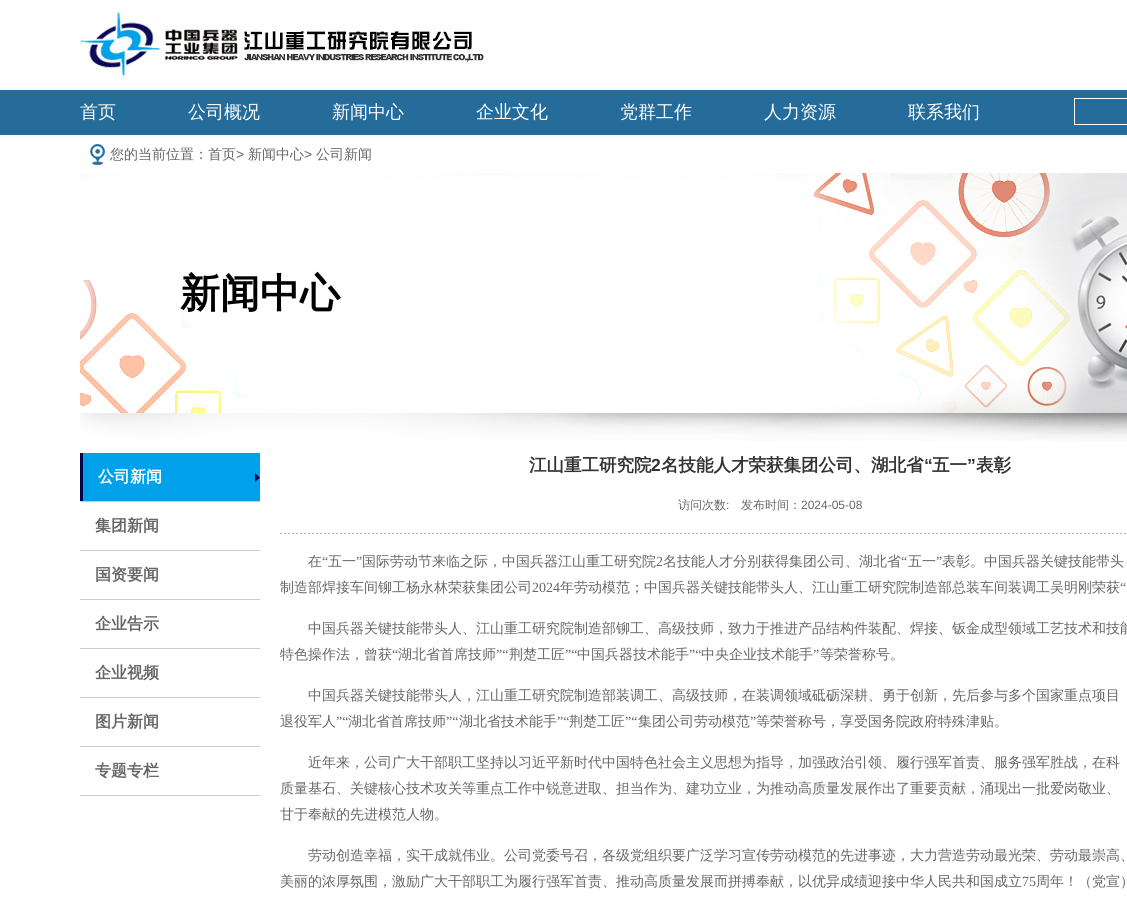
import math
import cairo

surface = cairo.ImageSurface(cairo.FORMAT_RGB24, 1127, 924)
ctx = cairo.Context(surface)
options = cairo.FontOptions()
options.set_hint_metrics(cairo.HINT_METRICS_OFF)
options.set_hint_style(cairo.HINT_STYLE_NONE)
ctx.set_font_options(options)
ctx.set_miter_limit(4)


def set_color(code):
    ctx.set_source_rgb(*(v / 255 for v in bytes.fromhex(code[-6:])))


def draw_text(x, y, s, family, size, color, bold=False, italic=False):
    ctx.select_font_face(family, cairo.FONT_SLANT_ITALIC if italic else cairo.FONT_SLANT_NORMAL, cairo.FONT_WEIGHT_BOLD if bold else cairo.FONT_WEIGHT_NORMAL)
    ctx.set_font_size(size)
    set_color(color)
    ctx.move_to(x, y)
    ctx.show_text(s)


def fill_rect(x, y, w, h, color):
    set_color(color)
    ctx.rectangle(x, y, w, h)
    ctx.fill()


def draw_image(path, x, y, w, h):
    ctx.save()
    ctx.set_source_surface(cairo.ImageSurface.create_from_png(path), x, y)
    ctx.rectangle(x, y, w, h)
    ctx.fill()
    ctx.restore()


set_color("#ffffff")
ctx.paint()
draw_image("assets/img1.png", 80, 8, 408, 72)
fill_rect(0, 90, 1127, 45, "#256c9b")
draw_text(80, 118, "首页", "WenQuanYi Zen Hei Medium", 18, "#ffffff")
draw_text(188, 118, "公司概况", "WenQuanYi Zen Hei Medium", 18, "#ffffff")
draw_text(332, 118, "新闻中心", "WenQuanYi Zen Hei Medium", 18, "#ffffff")
draw_text(476, 118, "企业文化", "WenQuanYi Zen Hei Medium", 18, "#ffffff")
draw_text(620, 118, "党群工作", "WenQuanYi Zen Hei Medium", 18, "#ffffff")
draw_text(764, 118, "人力资源", "WenQuanYi Zen Hei Medium", 18, "#ffffff")
draw_text(908, 118, "联系我们", "WenQuanYi Zen Hei Medium", 18, "#ffffff")
ctx.rectangle(1074.5, 98.5, 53, 26)
ctx.set_line_width(1)
ctx.stroke()
draw_image("assets/img2.png", 90, 144, 15, 21)
draw_text(110, 159, "您的当前位置：首页", "WenQuanYi Zen Hei Medium", 14, "#666666")
draw_text(236, 159, ">", "Liberation Sans", 14, "#666666")
draw_text(248, 159, "新闻中心", "WenQuanYi Zen Hei Medium", 14, "#666666")
draw_text(304, 159, ">", "Liberation Sans", 14, "#666666")
draw_text(316, 159, "公司新闻", "WenQuanYi Zen Hei Medium", 14, "#666666")
draw_image("assets/img3.png", 80, 173, 1047, 240)
draw_text(180, 307, "新闻中心", "WenQuanYi Zen Hei", 40, "#000000", bold=True)
draw_image("assets/img4.png", 80, 413, 1047, 29)
fill_rect(80, 501, 180, 1, "#cccccc")
fill_rect(83, 453, 177, 48, "#00a0ea")
draw_image("assets/img5.png", 255, 473, 5, 9)
fill_rect(80, 453, 3, 48, "#04044e")
draw_text(98, 482, "公司新闻", "WenQuanYi Zen Hei", 16, "#ffffff", bold=True)
fill_rect(80, 550, 180, 1, "#cccccc")
draw_text(95, 531, "集团新闻", "WenQuanYi Zen Hei", 16, "#666666", bold=True)
fill_rect(80, 599, 180, 1, "#cccccc")
draw_text(95, 580, "国资要闻", "WenQuanYi Zen Hei", 16, "#666666", bold=True)
fill_rect(80, 648, 180, 1, "#cccccc")
draw_text(95, 629, "企业告示", "WenQuanYi Zen Hei", 16, "#666666", bold=True)
fill_rect(80, 697, 180, 1, "#cccccc")
draw_text(95, 678, "企业视频", "WenQuanYi Zen Hei", 16, "#666666", bold=True)
fill_rect(80, 746, 180, 1, "#cccccc")
draw_text(95, 727, "图片新闻", "WenQuanYi Zen Hei", 16, "#666666", bold=True)
fill_rect(80, 795, 180, 1, "#cccccc")
draw_text(95, 776, "专题专栏", "WenQuanYi Zen Hei", 16, "#666666", bold=True)
draw_text(529, 471, "江山重工研究院", "WenQuanYi Zen Hei", 17.5, "#333333", bold=True)
draw_text(651, 471, "2", "Liberation Sans", 17.5, "#333333", bold=True)
draw_text(661, 471, "名技能人才荣获集团公司、湖北省", "WenQuanYi Zen Hei", 17.5, "#333333", bold=True)
draw_text(924, 471, "“", "Liberation Sans", 17.5, "#333333", bold=True)
draw_text(932, 471, "五一", "WenQuanYi Zen Hei", 17.5, "#333333", bold=True)
draw_text(967, 471, "”", "Liberation Sans", 17.5, "#333333", bold=True)
draw_text(976, 471, "表彰", "WenQuanYi Zen Hei", 17.5, "#333333", bold=True)
draw_image("assets/img6.png", 280, 533, 846, 1)
draw_text(678, 509, "访问次数", "WenQuanYi Zen Hei Medium", 12, "#666666")
draw_text(726, 509, ":", "Liberation Sans", 12, "#666666")
draw_text(741, 509, "发布时间：", "WenQuanYi Zen Hei Medium", 12, "#666666")
draw_text(801, 509, "2024-05-08", "Liberation Sans", 12, "#666666")
draw_text(308, 566, "在", "WenQuanYi Zen Hei Medium", 14, "#666666")
draw_text(322, 566, "“", "Liberation Serif", 14, "#666666")
draw_text(328, 566, "五一", "WenQuanYi Zen Hei Medium", 14, "#666666")
draw_text(356, 566, "”", "Liberation Serif", 14, "#666666")
draw_text(362, 566, "国际劳动节来临之际，中国兵器江山重工研究院", "WenQuanYi Zen Hei Medium", 14, "#666666")
draw_text(656, 566, "2", "Liberation Serif", 14, "#666666")
draw_text(663, 566, "名技能人才分别获得集团公司、湖北省", "WenQuanYi Zen Hei Medium", 14, "#666666")
draw_text(901, 566, "“", "Liberation Serif", 14, "#666666")
draw_text(908, 566, "五一", "WenQuanYi Zen Hei Medium", 14, "#666666")
draw_text(936, 566, "”", "Liberation Serif", 14, "#666666")
draw_text(942, 566, "表彰。中国兵器关键技能带头", "WenQuanYi Zen Hei Medium", 14, "#666666")
draw_text(280, 592, "制造部焊接车间铆工杨永林荣获集团公司", "WenQuanYi Zen Hei Medium", 14, "#666666")
draw_text(532, 592, "2024", "Liberation Serif", 14, "#666666")
draw_text(560, 592, "年劳动模范；中国兵器关键技能带头人、江山重工研究院制造部总装车间装调工吴明刚荣获", "WenQuanYi Zen Hei Medium", 14, "#666666")
draw_text(1120, 592, "“", "Liberation Serif", 14, "#666666")
draw_text(308, 633, "中国兵器关键技能带头人、江山重工研究院制造部铆工、高级技师，致力于推进产品结构件装配、焊接、钣金成型领域工艺技术和技能", "WenQuanYi Zen Hei Medium", 14, "#666666")
draw_text(280, 659, "特色操作法，曾获", "WenQuanYi Zen Hei Medium", 14, "#666666")
draw_text(392, 659, "“", "Liberation Serif", 14, "#666666")
draw_text(398, 659, "湖北省首席技师", "WenQuanYi Zen Hei Medium", 14, "#666666")
draw_text(496, 659, "”“", "Liberation Serif", 14, "#666666")
draw_text(509, 659, "荆楚工匠", "WenQuanYi Zen Hei Medium", 14, "#666666")
draw_text(565, 659, "”“", "Liberation Serif", 14, "#666666")
draw_text(577, 659, "中国兵器技术能手", "WenQuanYi Zen Hei Medium", 14, "#666666")
draw_text(689, 659, "”“", "Liberation Serif", 14, "#666666")
draw_text(701, 659, "中央企业技术能手", "WenQuanYi Zen Hei Medium", 14, "#666666")
draw_text(813, 659, "”", "Liberation Serif", 14, "#666666")
draw_text(820, 659, "等荣誉称号。", "WenQuanYi Zen Hei Medium", 14, "#666666")
draw_text(308, 700, "中国兵器关键技能带头人，江山重工研究院制造部装调工、高级技师，在装调领域砥砺深耕、勇于创新，先后参与多个国家重点项目", "WenQuanYi Zen Hei Medium", 14, "#666666")
draw_text(280, 726, "退役军人", "WenQuanYi Zen Hei Medium", 14, "#666666")
draw_text(336, 726, "”“", "Liberation Serif", 14, "#666666")
draw_text(348, 726, "湖北省首席技师", "WenQuanYi Zen Hei Medium", 14, "#666666")
draw_text(446, 726, "”“", "Liberation Serif", 14, "#666666")
draw_text(459, 726, "湖北省技术能手", "WenQuanYi Zen Hei Medium", 14, "#666666")
draw_text(557, 726, "”“", "Liberation Serif", 14, "#666666")
draw_text(569, 726, "荆楚工匠", "WenQuanYi Zen Hei Medium", 14, "#666666")
draw_text(625, 726, "”“", "Liberation Serif", 14, "#666666")
draw_text(638, 726, "集团公司劳动模范", "WenQuanYi Zen Hei Medium", 14, "#666666")
draw_text(750, 726, "”", "Liberation Serif", 14, "#666666")
draw_text(756, 726, "等荣誉称号，享受国务院政府特殊津贴。", "WenQuanYi Zen Hei Medium", 14, "#666666")
draw_text(308, 767, "近年来，公司广大干部职工坚持以习近平新时代中国特色社会主义思想为指导，加强政治引领、履行强军首责、服务强军胜战，在科", "WenQuanYi Zen Hei Medium", 14, "#666666")
draw_text(280, 793, "质量基石、关键核心技术攻关等重点工作中锐意进取、担当作为、建功立业，为推动高质量发展作出了重要贡献，涌现出一批爱岗敬业、", "WenQuanYi Zen Hei Medium", 14, "#666666")
draw_text(280, 819, "甘于奉献的先进模范人物。", "WenQuanYi Zen Hei Medium", 14, "#666666")
draw_text(308, 860, "劳动创造幸福，实干成就伟业。公司党委号召，各级党组织要广泛学习宣传劳动模范的先进事迹，大力营造劳动最光荣、劳动最崇高、", "WenQuanYi Zen Hei Medium", 14, "#666666")
draw_text(280, 886, "美丽的浓厚氛围，激励广大干部职工为履行强军首责、推动高质量发展而拼搏奉献，以优异成绩迎接中华人民共和国成立", "WenQuanYi Zen Hei Medium", 14, "#666666")
draw_text(1022, 886, "75", "Liberation Serif", 14, "#666666")
draw_text(1036, 886, "周年！（党宣）", "WenQuanYi Zen Hei Medium", 14, "#666666")
surface.write_to_png("output.png")
